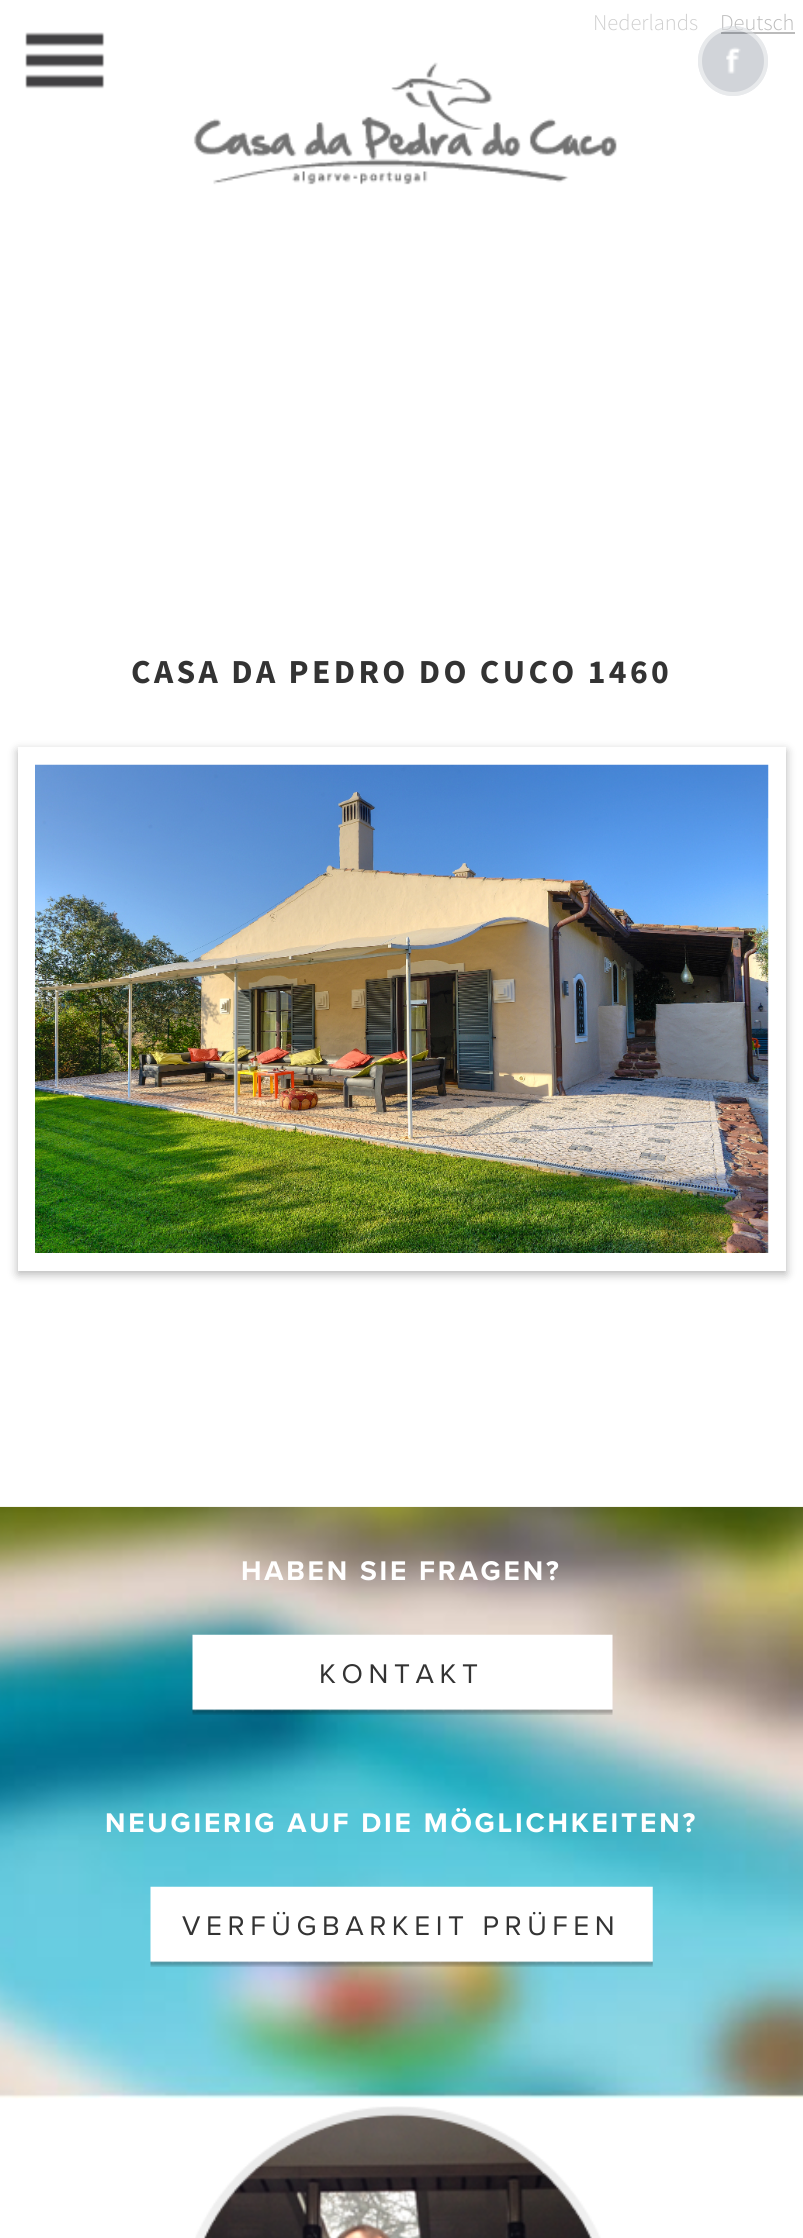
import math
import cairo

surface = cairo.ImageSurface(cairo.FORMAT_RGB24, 803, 2238)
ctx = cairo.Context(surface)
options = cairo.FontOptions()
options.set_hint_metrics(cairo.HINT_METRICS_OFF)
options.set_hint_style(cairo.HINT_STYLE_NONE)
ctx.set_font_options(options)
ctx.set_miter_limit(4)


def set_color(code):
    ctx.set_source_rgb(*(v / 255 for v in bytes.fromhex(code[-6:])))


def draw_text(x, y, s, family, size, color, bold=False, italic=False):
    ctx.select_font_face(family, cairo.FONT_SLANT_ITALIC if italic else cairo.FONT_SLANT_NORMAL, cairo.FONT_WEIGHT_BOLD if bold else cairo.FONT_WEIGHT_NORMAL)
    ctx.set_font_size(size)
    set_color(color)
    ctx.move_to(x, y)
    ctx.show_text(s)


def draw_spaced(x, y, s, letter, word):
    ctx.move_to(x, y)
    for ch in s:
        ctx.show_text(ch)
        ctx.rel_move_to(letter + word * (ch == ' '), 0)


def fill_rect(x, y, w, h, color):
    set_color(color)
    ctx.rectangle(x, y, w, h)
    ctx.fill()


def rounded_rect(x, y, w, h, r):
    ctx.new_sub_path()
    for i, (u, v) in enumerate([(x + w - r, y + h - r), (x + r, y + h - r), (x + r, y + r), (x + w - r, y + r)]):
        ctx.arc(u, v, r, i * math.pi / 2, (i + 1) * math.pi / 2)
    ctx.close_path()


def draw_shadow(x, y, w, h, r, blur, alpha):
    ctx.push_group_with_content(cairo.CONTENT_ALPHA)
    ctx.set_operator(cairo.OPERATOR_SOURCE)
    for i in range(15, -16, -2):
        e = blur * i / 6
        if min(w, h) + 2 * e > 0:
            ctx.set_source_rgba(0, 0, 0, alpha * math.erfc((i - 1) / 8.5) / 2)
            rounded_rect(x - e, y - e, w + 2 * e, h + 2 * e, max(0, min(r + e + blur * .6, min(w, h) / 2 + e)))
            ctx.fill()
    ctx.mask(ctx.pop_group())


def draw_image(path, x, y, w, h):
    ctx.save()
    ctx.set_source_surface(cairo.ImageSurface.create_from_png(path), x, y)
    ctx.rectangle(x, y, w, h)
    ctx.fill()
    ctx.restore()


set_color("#ffffff")
ctx.paint()
draw_text(593, 30, "Nederlands", "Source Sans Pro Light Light", 22.5, "#cfcfcf")
draw_text(720, 30, "Deutsch", "Source Sans Pro Light Light", 22.5, "#bbbbbb")
fill_rect(721, 32, 74, 2, "#bbbbbb")
draw_image("assets/img1.png", 25, 32, 80, 57)
draw_image("assets/img2.png", 193, 62, 424, 123)
ctx.set_source_rgba(0.11, 0.157, 0.267, 0.2)
ctx.arc(733, 61, 35, 0, 2 * math.pi)
ctx.fill()
draw_image("assets/img3.png", 726, 47, 15, 27)
ctx.arc(733, 61, 33, 0, 2 * math.pi)
ctx.set_source_rgba(1, 1, 1, 0.5)
ctx.set_line_width(4)
ctx.stroke()
ctx.select_font_face("Source Sans Pro", cairo.FONT_SLANT_NORMAL, cairo.FONT_WEIGHT_BOLD)
ctx.set_font_size(33.6)
set_color("#333333")
draw_spaced(131, 683, "CASA DA PEDRO DO CUCO 1460", 3.35, 0)
set_color("#000000")
draw_shadow(18, 751, 768, 523, 0, 5, 0.3)
ctx.rectangle(27, 756, 750, 506)
set_color("#ffffff")
ctx.set_line_width(18)
ctx.stroke()
draw_image("assets/img4.png", 35, 764, 734, 489)
draw_image("assets/img5.png", 0, 1506, 803, 593)
ctx.select_font_face("Proxima Nova", cairo.FONT_SLANT_NORMAL, cairo.FONT_WEIGHT_BOLD)
ctx.set_font_size(28)
draw_spaced(241, 1580, "HABEN SIE FRAGEN?", 2.8, 0)
draw_image("assets/img6.png", 192, 1634, 421, 81)
ctx.select_font_face("Proxima Nova")
set_color("#333333")
draw_spaced(319, 1683, "KONTAKT", 5.6, 0)
ctx.select_font_face("Proxima Nova", cairo.FONT_SLANT_NORMAL, cairo.FONT_WEIGHT_BOLD)
set_color("#ffffff")
draw_spaced(105, 1832, "NEUGIERIG AUF DIE MÖGLICHKEITEN?", 2.8, 0)
draw_image("assets/img7.png", 150, 1886, 503, 81)
ctx.select_font_face("Proxima Nova")
set_color("#333333")
draw_spaced(182, 1935, "VERFÜGBARKEIT PRÜFEN", 5.6, 0)
draw_image("assets/img8.png", 195, 2106, 406, 132)
surface.write_to_png("output.png")
